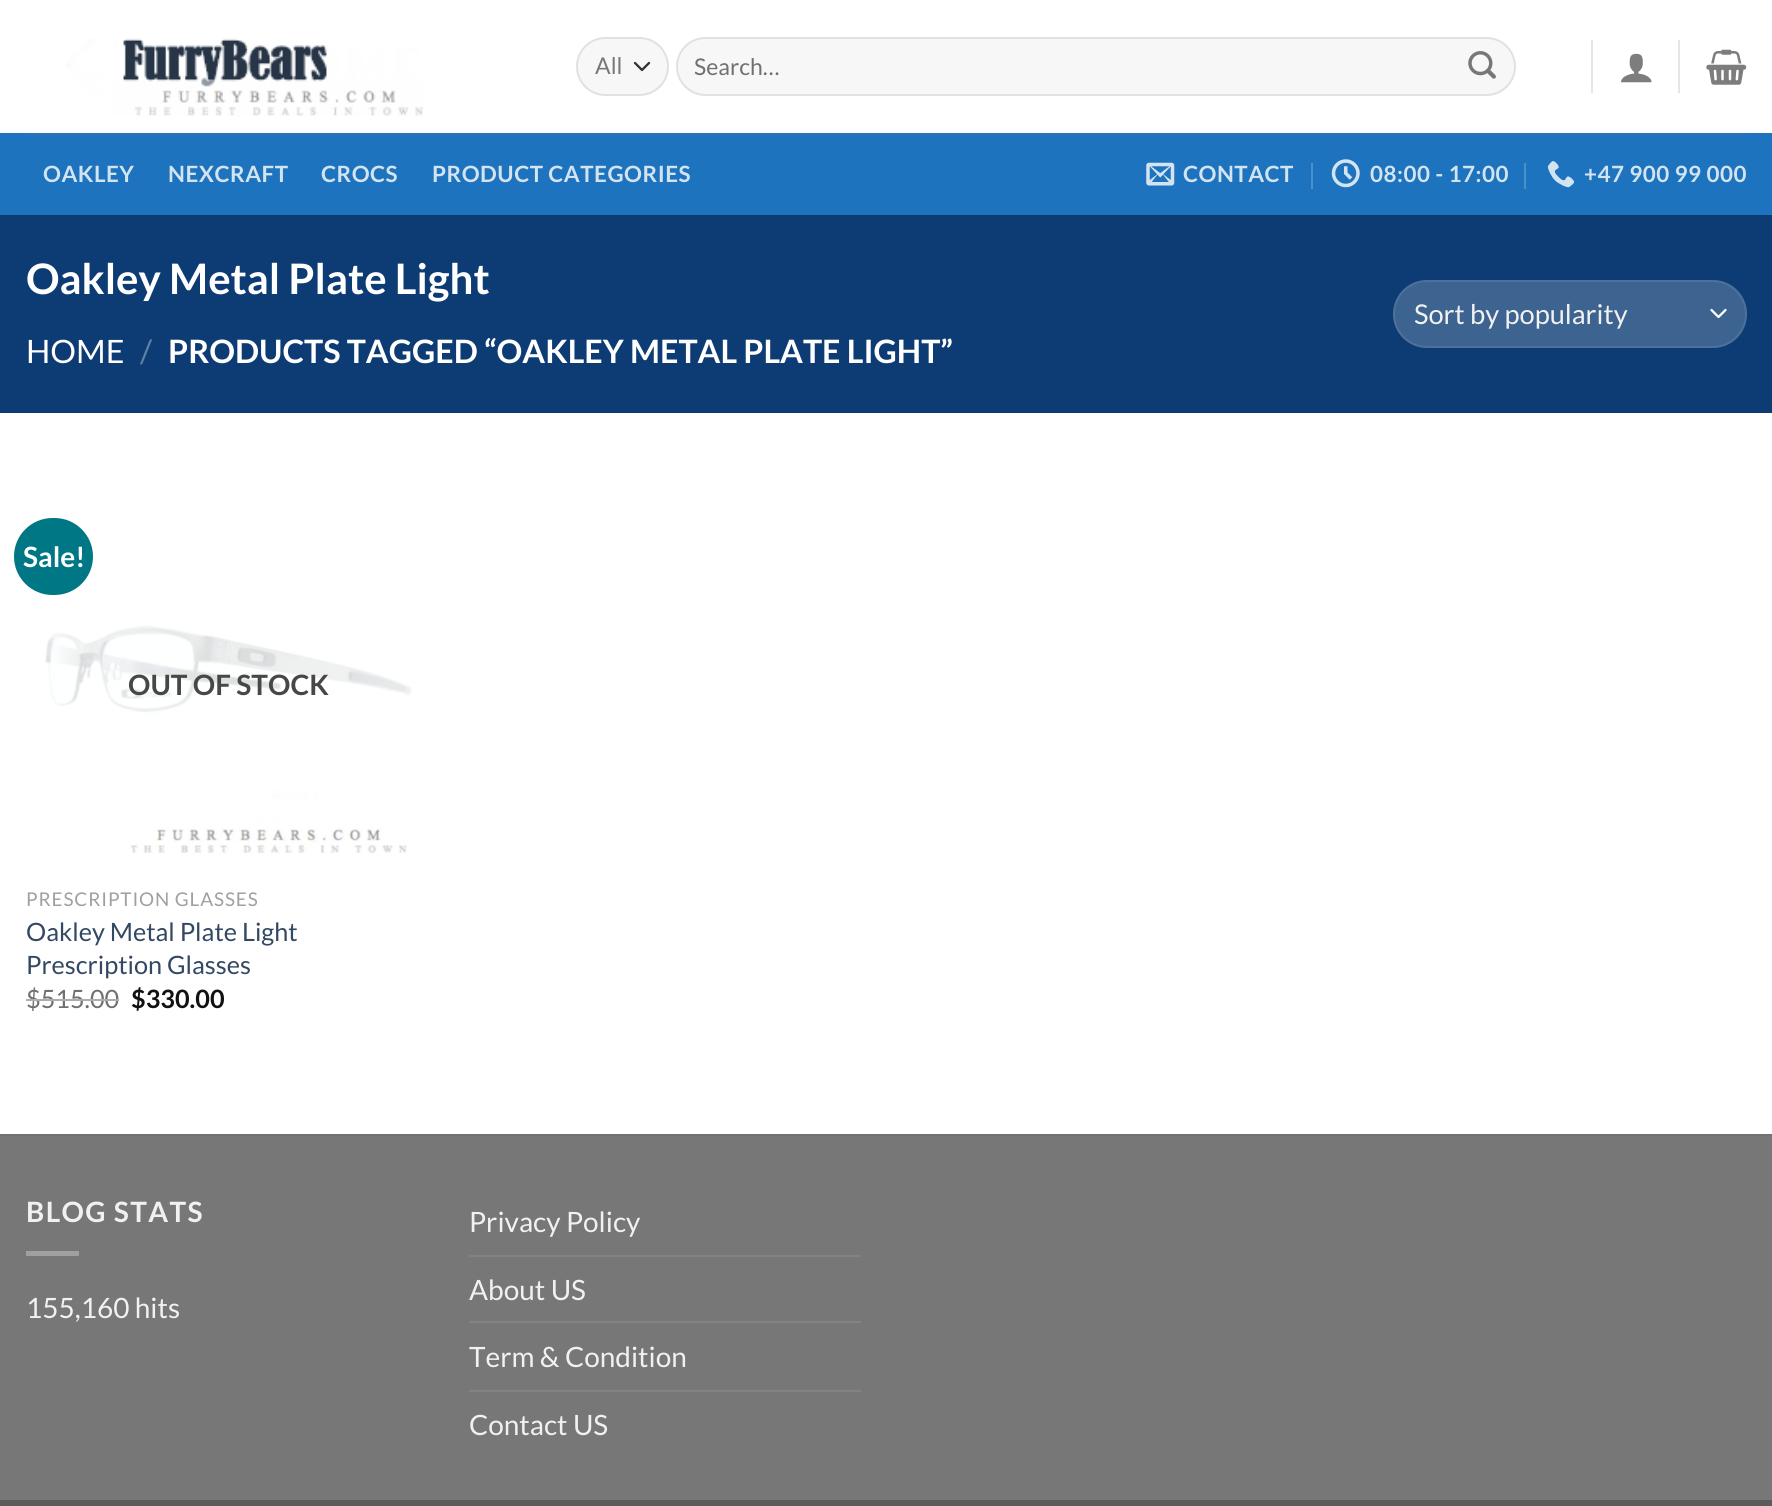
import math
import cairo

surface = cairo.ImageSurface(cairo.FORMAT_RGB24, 1772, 1506)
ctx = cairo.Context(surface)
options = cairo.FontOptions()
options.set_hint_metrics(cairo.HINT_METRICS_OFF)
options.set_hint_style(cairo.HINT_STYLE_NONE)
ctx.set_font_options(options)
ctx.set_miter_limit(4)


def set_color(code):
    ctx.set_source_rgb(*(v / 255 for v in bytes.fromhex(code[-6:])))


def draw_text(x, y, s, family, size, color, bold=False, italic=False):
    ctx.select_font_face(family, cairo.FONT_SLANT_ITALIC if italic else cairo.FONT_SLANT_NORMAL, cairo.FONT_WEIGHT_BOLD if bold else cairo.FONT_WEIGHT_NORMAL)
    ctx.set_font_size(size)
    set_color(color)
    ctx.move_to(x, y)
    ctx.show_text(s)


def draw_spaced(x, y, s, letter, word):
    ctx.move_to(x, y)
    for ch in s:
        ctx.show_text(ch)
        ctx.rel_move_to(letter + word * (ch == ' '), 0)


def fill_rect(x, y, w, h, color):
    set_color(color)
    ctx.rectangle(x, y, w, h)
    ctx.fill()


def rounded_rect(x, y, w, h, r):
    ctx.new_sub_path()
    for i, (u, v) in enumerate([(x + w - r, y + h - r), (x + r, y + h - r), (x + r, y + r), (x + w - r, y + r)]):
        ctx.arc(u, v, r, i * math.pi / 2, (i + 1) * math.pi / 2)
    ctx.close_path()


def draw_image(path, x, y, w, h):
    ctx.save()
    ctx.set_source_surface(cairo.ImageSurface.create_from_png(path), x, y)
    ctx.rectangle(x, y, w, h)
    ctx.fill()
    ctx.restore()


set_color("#ffffff")
ctx.paint()
draw_image("assets/img1.png", 65, 38, 359, 78)
set_color("#f7f7f7")
rounded_rect(576, 37, 93, 59, 29.5)
ctx.fill()
ctx.new_path()
ctx.move_to(635, 63)
ctx.line_to(642, 70)
ctx.line_to(649, 63)
set_color("#333333")
ctx.set_line_width(2.3)
ctx.set_line_cap(cairo.LINE_CAP_ROUND)
ctx.set_line_join(cairo.LINE_JOIN_ROUND)
ctx.stroke()
rounded_rect(577, 38, 91, 57, 28.5)
ctx.set_source_rgba(0, 0, 0, 0.09)
ctx.set_line_width(2)
ctx.set_line_cap(cairo.LINE_CAP_BUTT)
ctx.set_line_join(cairo.LINE_JOIN_MITER)
ctx.stroke()
draw_text(595, 74, "All", "Lato", 23, "#777777")
set_color("#f7f7f7")
rounded_rect(676, 37, 840, 59, 29.5)
ctx.fill()
rounded_rect(677, 38, 838, 57, 28.5)
ctx.set_source_rgba(0, 0, 0, 0.09)
ctx.stroke()
draw_text(694, 75, "Search…", "Lato", 23, "#707070")
draw_image("assets/img2.png", 1468, 51, 28, 28)
fill_rect(1591, 40, 2, 53, "#e6e6e6")
draw_image("assets/img3.png", 1621, 53, 31, 30)
fill_rect(1678, 40, 2, 53, "#e6e6e6")
draw_image("assets/img4.png", 1706, 49, 41, 36)
fill_rect(0, 133, 1772, 82, "#1e73be")
fill_rect(26, 133, 1721, 2, "#2773b7")
ctx.select_font_face("Lato", cairo.FONT_SLANT_NORMAL, cairo.FONT_WEIGHT_BOLD)
ctx.set_font_size(22.4)
set_color("#d2e3f2")
draw_spaced(43, 182, "OAKLEY", 0.5, 0)
draw_spaced(168, 182, "NEXCRAFT", 0.5, 0)
draw_spaced(321, 182, "CROCS", 0.5, 0)
draw_spaced(432, 182, "PRODUCT CATEGORIES", 0.5, 0)
draw_image("assets/img5.png", 1146, 162, 29, 24)
draw_spaced(1183, 182, "CONTACT", 0.5, 0)
fill_rect(1311, 163, 2, 26, "#4b8fcb")
draw_image("assets/img6.png", 1331, 159, 29, 29)
set_color("#d2e3f2")
draw_spaced(1370, 182, "08:00 - 17:00", 0.5, 0)
fill_rect(1524, 163, 2, 26, "#4b8fcb")
draw_image("assets/img7.png", 1547, 161, 28, 27)
set_color("#d2e3f2")
draw_spaced(1584, 182, "+47 900 99 000", 0.5, 0)
fill_rect(0, 215, 1772, 198, "#0d3c75")
draw_text(26, 294, "Oakley Metal Plate Light", "Lato", 42, "#ffffff", bold=True)
draw_text(26, 363, "HOME", "Lato", 32.2, "#ffffff")
draw_text(140, 363, "/", "Lato", 32.2, "#6280a5")
draw_text(168, 363, "PRODUCTS TAGGED “OAKLEY METAL PLATE LIGHT”", "Lato", 32.2, "#ffffff", bold=True)
set_color("#3d6391")
rounded_rect(1393, 280, 354, 68, 34)
ctx.fill()
ctx.new_path()
ctx.move_to(1711.5, 310)
ctx.line_to(1718.5, 317)
ctx.line_to(1725.5, 310)
set_color("#ffffff")
ctx.set_line_width(2.3)
ctx.set_line_cap(cairo.LINE_CAP_ROUND)
ctx.set_line_join(cairo.LINE_JOIN_ROUND)
ctx.stroke()
rounded_rect(1394, 281, 352, 66, 33)
ctx.set_source_rgba(1, 1, 1, 0.09)
ctx.set_line_width(2)
ctx.set_line_cap(cairo.LINE_CAP_BUTT)
ctx.set_line_join(cairo.LINE_JOIN_MITER)
ctx.stroke()
draw_text(1414, 324, "Sort by popularity", "Lato", 27.25, "#f1f1f1")
set_color("#007784")
rounded_rect(14, 518, 79, 77, 38.5)
ctx.fill()
draw_text(23, 567, "Sale!", "Lato", 28, "#ffffff", bold=True)
draw_image("assets/img8.png", 44, 626, 369, 228)
ctx.set_source_rgba(1, 1, 1, 0.81)
ctx.rectangle(44, 627, 369, 86)
ctx.fill()
draw_text(128, 695, "OUT OF STOCK", "Lato", 28, "#474747", bold=True)
ctx.select_font_face("Lato")
ctx.set_font_size(18.9)
set_color("#a0a0a0")
draw_spaced(26, 906, "PRESCRIPTION GLASSES", 0.9, 0)
draw_text(26, 941, "Oakley Metal Plate Light", "Lato", 25.25, "#334862")
draw_text(26, 974, "Prescription Glasses", "Lato", 25.25, "#334862")
draw_text(26, 1008, "$515.00", "Lato", 25.25, "#707070")
fill_rect(26, 999, 93, 2, "#adadad")
draw_text(131, 1008, "$330.00", "Lato", 25.25, "#111111", bold=True)
fill_rect(0, 1136, 1772, 364, "#777777")
fill_rect(0, 1134, 1772, 2, "#717171")
ctx.set_font_size(28)
set_color("#f1f1f1")
draw_spaced(26, 1222, "BLOG STATS", 1.4, 0)
fill_rect(26, 1251, 53, 5, "#a0a0a0")
draw_text(26, 1318, "155,160 hits", "Lato", 28, "#f1f1f1")
draw_text(469, 1232, "Privacy Policy", "Lato", 28, "#f1f1f1")
fill_rect(469, 1255, 392, 2, "#828282")
draw_text(469, 1300, "About US", "Lato", 28, "#f1f1f1")
fill_rect(469, 1321, 392, 2, "#828282")
draw_text(469, 1367, "Term & Condition", "Lato", 28, "#f1f1f1")
fill_rect(469, 1390, 392, 2, "#828282")
draw_text(469, 1435, "Contact US", "Lato", 28, "#f1f1f1")
fill_rect(0, 1500, 1772, 6, "#5b5b5b")
surface.write_to_png("output.png")
